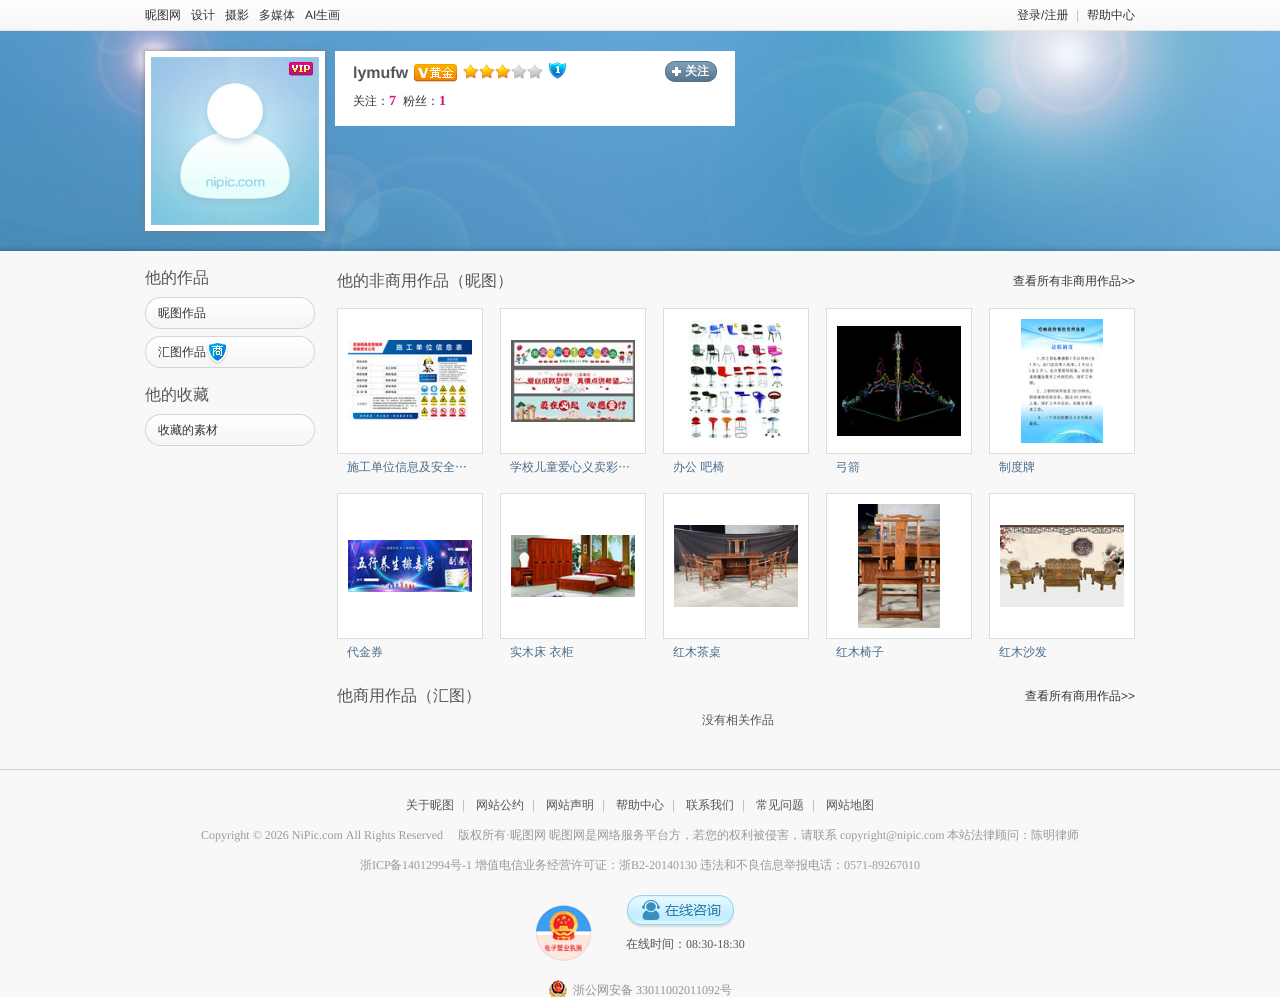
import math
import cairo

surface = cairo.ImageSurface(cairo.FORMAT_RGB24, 1280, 997)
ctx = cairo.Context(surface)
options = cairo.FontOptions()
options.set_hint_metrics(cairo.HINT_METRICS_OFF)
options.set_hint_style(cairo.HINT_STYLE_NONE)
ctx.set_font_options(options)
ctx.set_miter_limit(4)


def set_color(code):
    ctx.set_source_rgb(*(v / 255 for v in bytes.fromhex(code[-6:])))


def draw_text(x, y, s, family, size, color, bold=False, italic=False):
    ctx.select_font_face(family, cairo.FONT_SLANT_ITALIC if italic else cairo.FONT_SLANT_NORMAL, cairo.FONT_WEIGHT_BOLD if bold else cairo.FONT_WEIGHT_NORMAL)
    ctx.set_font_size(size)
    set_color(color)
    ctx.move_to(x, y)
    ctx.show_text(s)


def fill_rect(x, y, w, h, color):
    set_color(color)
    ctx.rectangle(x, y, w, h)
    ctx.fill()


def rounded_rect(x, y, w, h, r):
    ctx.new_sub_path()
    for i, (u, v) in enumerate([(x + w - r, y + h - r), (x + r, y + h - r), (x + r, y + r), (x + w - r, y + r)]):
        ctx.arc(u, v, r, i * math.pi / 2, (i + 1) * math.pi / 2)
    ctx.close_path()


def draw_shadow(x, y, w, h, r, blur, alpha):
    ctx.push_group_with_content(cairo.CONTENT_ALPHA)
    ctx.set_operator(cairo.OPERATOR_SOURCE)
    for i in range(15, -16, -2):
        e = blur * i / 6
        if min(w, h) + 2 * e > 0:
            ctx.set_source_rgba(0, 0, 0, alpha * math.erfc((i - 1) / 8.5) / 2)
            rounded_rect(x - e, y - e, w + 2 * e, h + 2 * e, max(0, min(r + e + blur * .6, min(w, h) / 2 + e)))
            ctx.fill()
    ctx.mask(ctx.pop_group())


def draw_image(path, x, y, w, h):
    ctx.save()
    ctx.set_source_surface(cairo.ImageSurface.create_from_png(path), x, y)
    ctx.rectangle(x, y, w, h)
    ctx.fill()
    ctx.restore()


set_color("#f8f8f9")
ctx.paint()
draw_image("assets/img1.png", 0, 31, 1280, 220)
gradient = cairo.LinearGradient(640, 0, 640, 30)
gradient.add_color_stop_rgba(0, 1, 1, 1, 1)
gradient.add_color_stop_rgba(1, 0.965, 0.965, 0.965, 1)
ctx.set_source(gradient)
ctx.rectangle(0, 0, 1280, 30)
ctx.fill()
fill_rect(0, 30, 1280, 1, "#e5e5e5")
draw_text(145, 19, "昵图网", "WenQuanYi Zen Hei Medium", 12, "#333333")
draw_text(191, 19, "设计", "WenQuanYi Zen Hei Medium", 12, "#333333")
draw_text(225, 19, "摄影", "WenQuanYi Zen Hei Medium", 12, "#333333")
draw_text(259, 19, "多媒体", "WenQuanYi Zen Hei Medium", 12, "#333333")
draw_text(305, 19, "AI", "Liberation Sans", 12, "#333333")
draw_text(316, 19, "生画", "WenQuanYi Zen Hei Medium", 12, "#333333")
draw_text(1017, 19, "登录 注册", "WenQuanYi Zen Hei Medium", 12, "#333333")
draw_text(1087, 19, "帮助中心", "WenQuanYi Zen Hei Medium", 12, "#333333")
draw_text(1041, 19, "/", "Liberation Sans", 12, "#333333")
draw_text(1076, 19, "|", "Liberation Sans", 12, "#bbbbbb")
set_color("#777777")
draw_shadow(145, 51, 180, 180, 0, 2.5, 1)
fill_rect(145, 51, 180, 180, "#ffffff")
draw_image("assets/img2.png", 151, 57, 168, 168)
draw_image("assets/img3.png", 289, 62, 24, 14)
fill_rect(335, 51, 400, 75, "#ffffff")
draw_text(353, 78, "lymufw", "Liberation Sans", 16, "#555555", bold=True)
draw_image("assets/img4.png", 414, 64, 43, 18)
draw_image("assets/img5.png", 463, 64, 80, 15)
draw_image("assets/img6.png", 548, 62, 19, 18)
draw_image("assets/img7.png", 665, 61, 52, 21)
draw_text(685, 75, "关注", "WenQuanYi Zen Hei", 12, "#ffffff", bold=True)
draw_text(353, 105, "关注：", "WenQuanYi Zen Hei Medium", 12, "#333333")
draw_text(389, 105, "7", "Liberation Serif", 14, "#dd137b", bold=True)
draw_text(403, 105, "粉丝：", "WenQuanYi Zen Hei Medium", 12, "#333333")
draw_text(439, 105, "1", "Liberation Serif", 14, "#dd137b", bold=True)
draw_text(145, 283, "他的作品", "WenQuanYi Zen Hei Medium", 16, "#555555")
draw_image("assets/img8.png", 145, 297, 170, 32)
draw_text(158, 317, "昵图作品", "WenQuanYi Zen Hei Medium", 12, "#333333")
draw_image("assets/img8.png", 145, 336, 170, 32)
draw_text(158, 356, "汇图作品", "WenQuanYi Zen Hei Medium", 12, "#333333")
draw_image("assets/img9.png", 206, 343, 23, 21)
draw_text(145, 400, "他的收藏", "WenQuanYi Zen Hei Medium", 16, "#555555")
draw_image("assets/img8.png", 145, 414, 170, 32)
draw_text(158, 434, "收藏的素材", "WenQuanYi Zen Hei Medium", 12, "#333333")
draw_text(337, 286, "他的非商用作品（昵图）", "WenQuanYi Zen Hei Medium", 16, "#555555")
draw_text(1013, 285, "查看所有非商用作品", "WenQuanYi Zen Hei Medium", 12, "#333333")
draw_text(1121, 285, ">>", "Liberation Sans", 12, "#333333")
set_color("#ffffff")
ctx.rectangle(337.5, 308.5, 145, 145)
ctx.fill_preserve()
set_color("#dddddd")
ctx.set_line_width(1)
ctx.stroke()
draw_image("assets/img10.png", 348, 340, 124, 80)
draw_text(347, 471, "施工单位信息及安全…", "WenQuanYi Zen Hei Medium", 12, "#486c8b")
set_color("#ffffff")
ctx.rectangle(500.5, 308.5, 145, 145)
ctx.fill_preserve()
set_color("#dddddd")
ctx.stroke()
draw_image("assets/img11.png", 511, 340, 124, 82)
draw_text(510, 471, "学校儿童爱心义卖彩…", "WenQuanYi Zen Hei Medium", 12, "#486c8b")
set_color("#ffffff")
ctx.rectangle(663.5, 308.5, 145, 145)
ctx.fill_preserve()
set_color("#dddddd")
ctx.stroke()
draw_image("assets/img12.png", 688, 319, 96, 120)
draw_text(673, 471, "办公 吧椅", "WenQuanYi Zen Hei Medium", 12, "#486c8b")
set_color("#ffffff")
ctx.rectangle(826.5, 308.5, 145, 145)
ctx.fill_preserve()
set_color("#dddddd")
ctx.stroke()
draw_image("assets/img13.png", 837, 326, 124, 110)
draw_text(836, 471, "弓箭", "WenQuanYi Zen Hei Medium", 12, "#486c8b")
set_color("#ffffff")
ctx.rectangle(989.5, 308.5, 145, 145)
ctx.fill_preserve()
set_color("#dddddd")
ctx.stroke()
draw_image("assets/img14.png", 1021, 319, 82, 124)
draw_text(999, 471, "制度牌", "WenQuanYi Zen Hei Medium", 12, "#486c8b")
set_color("#ffffff")
ctx.rectangle(337.5, 493.5, 145, 145)
ctx.fill_preserve()
set_color("#dddddd")
ctx.stroke()
draw_image("assets/img15.png", 348, 540, 124, 52)
draw_text(347, 656, "代金券", "WenQuanYi Zen Hei Medium", 12, "#486c8b")
set_color("#ffffff")
ctx.rectangle(500.5, 493.5, 145, 145)
ctx.fill_preserve()
set_color("#dddddd")
ctx.stroke()
draw_image("assets/img16.png", 511, 535, 124, 62)
draw_text(510, 656, "实木床 衣柜", "WenQuanYi Zen Hei Medium", 12, "#486c8b")
set_color("#ffffff")
ctx.rectangle(663.5, 493.5, 145, 145)
ctx.fill_preserve()
set_color("#dddddd")
ctx.stroke()
draw_image("assets/img17.png", 674, 525, 124, 82)
draw_text(673, 656, "红木茶桌", "WenQuanYi Zen Hei Medium", 12, "#486c8b")
set_color("#ffffff")
ctx.rectangle(826.5, 493.5, 145, 145)
ctx.fill_preserve()
set_color("#dddddd")
ctx.stroke()
draw_image("assets/img18.png", 858, 504, 82, 124)
draw_text(836, 656, "红木椅子", "WenQuanYi Zen Hei Medium", 12, "#486c8b")
set_color("#ffffff")
ctx.rectangle(989.5, 493.5, 145, 145)
ctx.fill_preserve()
set_color("#dddddd")
ctx.stroke()
draw_image("assets/img19.png", 1000, 525, 124, 82)
draw_text(999, 656, "红木沙发", "WenQuanYi Zen Hei Medium", 12, "#486c8b")
draw_text(337, 701, "他商用作品（汇图）", "WenQuanYi Zen Hei Medium", 16, "#555555")
draw_text(1025, 700, "查看所有商用作品", "WenQuanYi Zen Hei Medium", 12, "#333333")
draw_text(1121, 700, ">>", "Liberation Sans", 12, "#333333")
draw_text(702, 724, "没有相关作品", "WenQuanYi Zen Hei Medium", 12, "#555555")
fill_rect(0, 769, 1280, 1, "#d2d2d2")
draw_text(406, 809, "关于昵图", "WenQuanYi Zen Hei Medium", 12, "#555555")
draw_text(462, 809, "|", "Liberation Sans", 12, "#bbbbbb")
draw_text(476, 809, "网站公约", "WenQuanYi Zen Hei Medium", 12, "#555555")
draw_text(532, 809, "|", "Liberation Sans", 12, "#bbbbbb")
draw_text(546, 809, "网站声明", "WenQuanYi Zen Hei Medium", 12, "#555555")
draw_text(602, 809, "|", "Liberation Sans", 12, "#bbbbbb")
draw_text(616, 809, "帮助中心", "WenQuanYi Zen Hei Medium", 12, "#555555")
draw_text(672, 809, "|", "Liberation Sans", 12, "#bbbbbb")
draw_text(686, 809, "联系我们", "WenQuanYi Zen Hei Medium", 12, "#555555")
draw_text(742, 809, "|", "Liberation Sans", 12, "#bbbbbb")
draw_text(756, 809, "常见问题", "WenQuanYi Zen Hei Medium", 12, "#555555")
draw_text(812, 809, "|", "Liberation Sans", 12, "#bbbbbb")
draw_text(826, 809, "网站地图", "WenQuanYi Zen Hei Medium", 12, "#555555")
draw_text(201, 839, "Copyright © 2026 NiPic.com All Rights Reserved", "Liberation Serif", 12, "#999999")
draw_text(458, 839, "版权所有", "WenQuanYi Zen Hei Medium", 12, "#999999")
draw_text(506, 839, "·", "Liberation Serif", 12, "#999999")
draw_text(510, 839, "昵图网", "WenQuanYi Zen Hei Medium", 12, "#999999")
draw_text(549, 839, "昵图网是网络服务平台方，若您的权利被侵害，请联系", "WenQuanYi Zen Hei Medium", 12, "#999999")
draw_text(840, 839, "copyright@nipic.com", "Liberation Serif", 12, "#999999")
draw_text(947, 839, "本站法律顾问：陈明律师", "WenQuanYi Zen Hei Medium", 12, "#999999")
draw_text(360, 869, "浙", "WenQuanYi Zen Hei Medium", 12, "#999999")
draw_text(372, 869, "ICP", "Liberation Serif", 12, "#999999")
draw_text(390, 869, "备", "WenQuanYi Zen Hei Medium", 12, "#999999")
draw_text(402, 869, "14012994", "Liberation Serif", 12, "#999999")
draw_text(450, 869, "号", "WenQuanYi Zen Hei Medium", 12, "#999999")
draw_text(462, 869, "-1", "Liberation Serif", 12, "#999999")
draw_text(475, 869, "增值电信业务经营许可证：浙", "WenQuanYi Zen Hei Medium", 12, "#999999")
draw_text(631, 869, "B2-20140130", "Liberation Serif", 12, "#999999")
draw_text(700, 869, "违法和不良信息举报电话：", "WenQuanYi Zen Hei Medium", 12, "#999999")
draw_text(844, 869, "0571-89267010", "Liberation Serif", 12, "#999999")
draw_image("assets/img20.png", 536, 905, 56, 56)
draw_image("assets/img21.png", 626, 895, 108, 33)
draw_text(626, 948, "在线时间：", "WenQuanYi Zen Hei Medium", 12, "#555555")
draw_text(686, 948, "08:30-18:30", "Liberation Serif", 12, "#555555")
draw_image("assets/img22.png", 549, 980, 18, 17)
draw_text(573, 994, "浙公网安备", "WenQuanYi Zen Hei Medium", 12, "#939393")
draw_text(636, 994, "33011002011092", "Liberation Serif", 12, "#939393")
draw_text(720, 994, "号", "WenQuanYi Zen Hei Medium", 12, "#939393")
surface.write_to_png("output.png")
